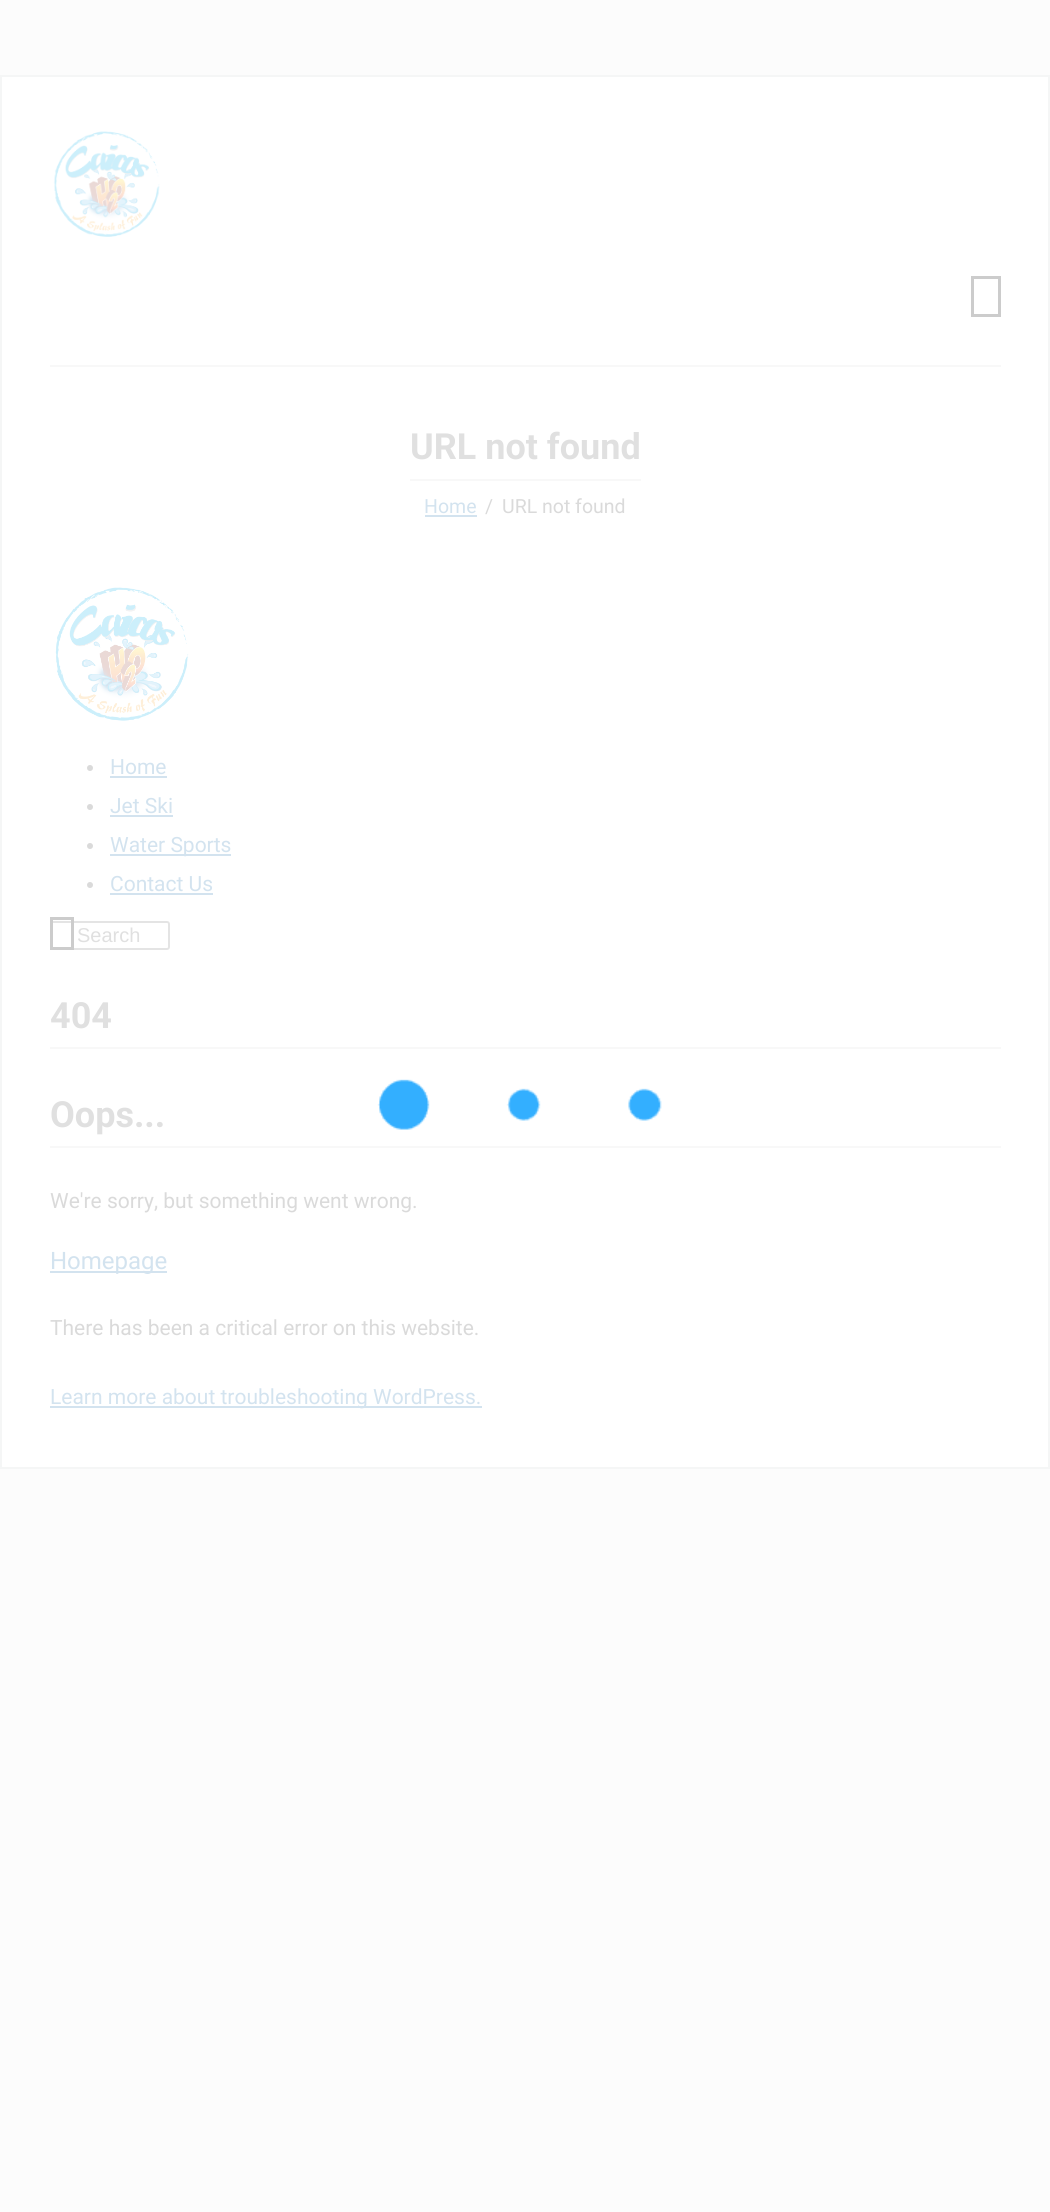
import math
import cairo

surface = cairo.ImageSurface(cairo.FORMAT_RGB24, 1050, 2212)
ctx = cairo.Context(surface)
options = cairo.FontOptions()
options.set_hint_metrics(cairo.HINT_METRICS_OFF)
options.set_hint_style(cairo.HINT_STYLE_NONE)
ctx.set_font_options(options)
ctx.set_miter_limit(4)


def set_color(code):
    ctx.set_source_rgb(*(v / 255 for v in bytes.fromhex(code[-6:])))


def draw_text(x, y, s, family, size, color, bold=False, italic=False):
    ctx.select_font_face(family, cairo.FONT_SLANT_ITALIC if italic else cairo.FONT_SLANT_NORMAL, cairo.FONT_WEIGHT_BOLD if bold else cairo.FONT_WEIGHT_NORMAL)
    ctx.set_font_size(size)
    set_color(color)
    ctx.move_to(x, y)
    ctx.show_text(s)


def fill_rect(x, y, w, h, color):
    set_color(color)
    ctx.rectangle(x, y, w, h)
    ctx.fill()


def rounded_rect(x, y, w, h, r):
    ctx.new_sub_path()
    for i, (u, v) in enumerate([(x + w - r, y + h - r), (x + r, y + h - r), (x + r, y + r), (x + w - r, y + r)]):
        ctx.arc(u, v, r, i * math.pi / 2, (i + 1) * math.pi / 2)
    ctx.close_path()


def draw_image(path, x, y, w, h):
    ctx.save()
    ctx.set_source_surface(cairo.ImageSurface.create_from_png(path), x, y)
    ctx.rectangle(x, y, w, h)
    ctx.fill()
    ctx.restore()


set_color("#fcfcfc")
ctx.paint()
set_color("#ffffff")
ctx.rectangle(1, 76, 1048, 1392)
ctx.fill_preserve()
set_color("#f5f6f6")
ctx.stroke()
fill_rect(50, 365, 951, 2, "#f8f8f8")
draw_image("assets/img1.png", 53, 131, 107, 106)
ctx.rectangle(972.5, 277.5, 27, 38)
set_color("#cccccc")
ctx.set_line_width(3)
ctx.stroke()
fill_rect(410, 479, 231, 2, "#f8f8f8")
draw_text(410, 459, "URL not found", "Roboto", 36, "#e0e0e0", bold=True)
draw_text(424, 513, "Home", "Roboto", 19.5, "#d3e3ef")
fill_rect(425, 515, 52, 2, "#d3e3ef")
draw_text(485, 513, "/", "Roboto", 19.5, "#dadada")
draw_text(502, 513, "URL not found", "Roboto", 19.5, "#dadada")
draw_image("assets/img2.png", 55, 587, 134, 134)
ctx.arc(90, 768, 3, 0, 2 * math.pi)
ctx.fill()
draw_text(110, 774, "Home", "Roboto", 21, "#d3e3ef")
fill_rect(110, 776, 57, 2, "#d3e3ef")
set_color("#dadada")
ctx.new_path()
ctx.arc(90, 807, 3, 0, 2 * math.pi)
ctx.fill()
draw_text(110, 813, "Jet Ski", "Roboto", 21, "#d3e3ef")
fill_rect(110, 815, 63, 2, "#d3e3ef")
set_color("#dadada")
ctx.new_path()
ctx.arc(90, 846, 3, 0, 2 * math.pi)
ctx.fill()
fill_rect(110, 854, 121, 2, "#d3e3ef")
draw_text(110, 852, "Water Sports", "Roboto", 21, "#d3e3ef")
set_color("#dadada")
ctx.new_path()
ctx.arc(90, 885, 3, 0, 2 * math.pi)
ctx.fill()
draw_text(110, 891, "Contact Us", "Roboto", 21, "#d3e3ef")
fill_rect(110, 893, 103, 2, "#d3e3ef")
rounded_rect(51, 922, 118, 27, 2)
set_color("#e4e4e4")
ctx.set_line_width(2)
ctx.stroke()
ctx.rectangle(51.5, 918.5, 21, 30)
set_color("#cccccc")
ctx.set_line_width(3)
ctx.stroke()
draw_text(77, 942, "Search", "Liberation Sans", 20, "#e0e0e0")
fill_rect(50, 1047, 951, 2, "#f8f8f8")
draw_text(50, 1028, "404", "Roboto", 36, "#e0e0e0", bold=True)
fill_rect(50, 1146, 951, 2, "#f8f8f8")
draw_text(50, 1127, "Oops...", "Roboto", 36, "#e0e0e0", bold=True)
draw_text(50, 1208, "We're sorry, but something went wrong.", "Roboto", 21, "#dadada")
fill_rect(50, 1271, 117, 2, "#d3e3ef")
draw_text(50, 1269, "Homepage", "Roboto", 24, "#d3e3ef")
draw_text(50, 1335, "There has been a critical error on this website.", "Roboto", 21, "#dadada")
fill_rect(50, 1406, 432, 2, "#d3e3ef")
draw_text(50, 1404, "Learn more about troubleshooting WordPress.", "Roboto", 21, "#d3e3ef")
draw_image("assets/img3.png", 377, 1079, 285, 51)
surface.write_to_png("output.png")
